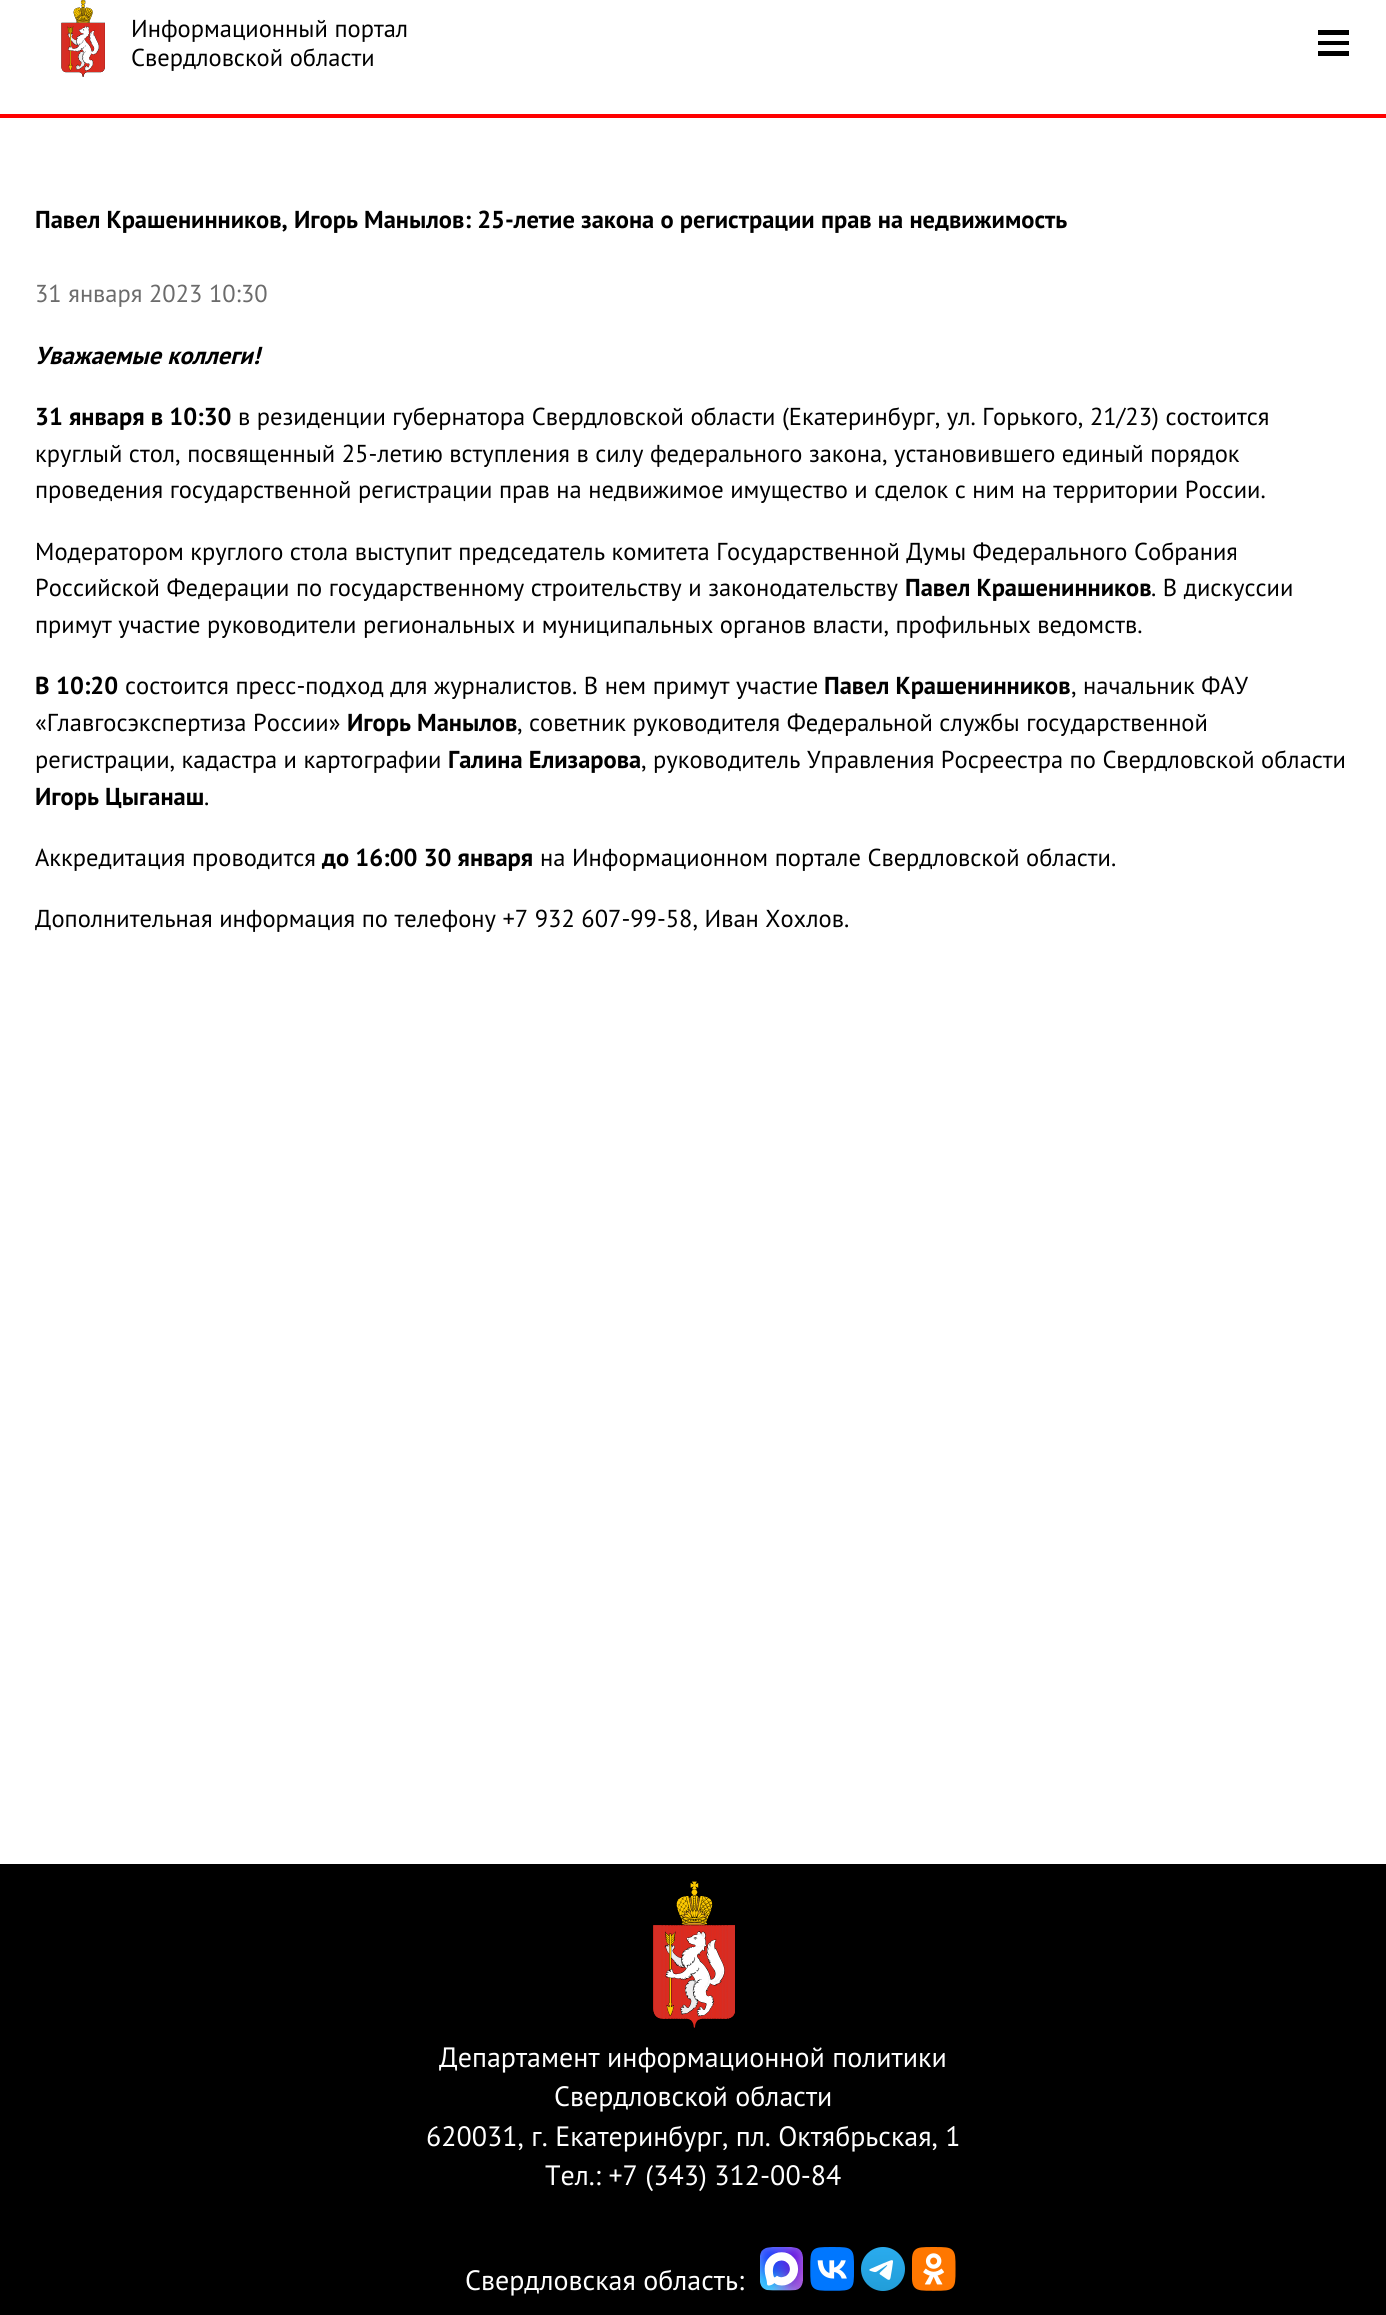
import math
import cairo

surface = cairo.ImageSurface(cairo.FORMAT_RGB24, 1386, 2315)
ctx = cairo.Context(surface)
options = cairo.FontOptions()
options.set_hint_metrics(cairo.HINT_METRICS_OFF)
options.set_hint_style(cairo.HINT_STYLE_NONE)
ctx.set_font_options(options)
ctx.set_miter_limit(4)


def set_color(code):
    ctx.set_source_rgb(*(v / 255 for v in bytes.fromhex(code[-6:])))


def draw_text(x, y, s, family, size, color, bold=False, italic=False):
    ctx.select_font_face(family, cairo.FONT_SLANT_ITALIC if italic else cairo.FONT_SLANT_NORMAL, cairo.FONT_WEIGHT_BOLD if bold else cairo.FONT_WEIGHT_NORMAL)
    ctx.set_font_size(size)
    set_color(color)
    ctx.move_to(x, y)
    ctx.show_text(s)


def fill_rect(x, y, w, h, color):
    set_color(color)
    ctx.rectangle(x, y, w, h)
    ctx.fill()


def draw_image(path, x, y, w, h):
    ctx.save()
    ctx.set_source_surface(cairo.ImageSurface.create_from_png(path), x, y)
    ctx.rectangle(x, y, w, h)
    ctx.fill()
    ctx.restore()


set_color("#ffffff")
ctx.paint()
draw_image("assets/img1.png", 61, 0, 44, 77)
draw_text(131, 37, "Информационный портал", "PT Sans", 24.5, "#000000")
draw_text(131, 66, "Свердловской области", "PT Sans", 24.5, "#000000")
fill_rect(1318, 30, 31, 5, "#000000")
fill_rect(1318, 41, 31, 4, "#000000")
fill_rect(1318, 51, 31, 5, "#000000")
fill_rect(0, 114, 1386, 4, "#ff0000")
draw_text(35, 228, "Павел Крашенинников, Игорь Манылов: 25-летие закона о регистрации прав на недвижимость", "PT Sans", 24.5, "#000000", bold=True)
draw_text(35, 302, "31 января 2023 10:30", "PT Sans", 24.5, "#6b6b6b")
draw_text(35, 364, "Уважаемые коллеги!", "PT Sans", 24.5, "#000000", bold=True, italic=True)
draw_text(35, 425, "31 января в 10:30", "PT Sans", 24.5, "#000000", bold=True)
draw_text(238, 425, "в резиденции губернатора Свердловской области (Екатеринбург, ул. Горького, 21/23) состоится", "PT Sans", 24.5, "#000000")
draw_text(35, 462, "круглый стол, посвященный 25-летию вступления в силу федерального закона, установившего единый порядок", "PT Sans", 24.5, "#000000")
draw_text(35, 498, "проведения государственной регистрации прав на недвижимое имущество и сделок с ним на территории России.", "PT Sans", 24.5, "#000000")
draw_text(35, 560, "Модератором круглого стола выступит председатель комитета Государственной Думы Федерального Собрания", "PT Sans", 24.5, "#000000")
draw_text(35, 596, "Российской Федерации по государственному строительству и законодательству", "PT Sans", 24.5, "#000000")
draw_text(905, 596, "Павел Крашенинников", "PT Sans", 24.5, "#000000", bold=True)
draw_text(1151, 596, ". В дискуссии", "PT Sans", 24.5, "#000000")
draw_text(35, 633, "примут участие руководители региональных и муниципальных органов власти, профильных ведомств.", "PT Sans", 24.5, "#000000")
draw_text(35, 694, "В", "PT Sans", 24.5, "#000000", bold=True)
draw_text(56, 694, "10:20", "PT Sans", 24.5, "#000000", bold=True)
draw_text(125, 694, "состоится пресс-подход для журналистов. В нем примут участие", "PT Sans", 24.5, "#000000")
draw_text(824, 694, "Павел Крашенинников", "PT Sans", 24.5, "#000000", bold=True)
draw_text(1071, 694, ", начальник ФАУ", "PT Sans", 24.5, "#000000")
draw_text(35, 731, "«Главгосэкспертиза России»", "PT Sans", 24.5, "#000000")
draw_text(347, 731, "Игорь Манылов", "PT Sans", 24.5, "#000000", bold=True)
draw_text(517, 731, ", советник руководителя Федеральной службы государственной", "PT Sans", 24.5, "#000000")
draw_text(35, 768, "регистрации, кадастра и картографии", "PT Sans", 24.5, "#000000")
draw_text(448, 768, "Галина Елизарова", "PT Sans", 24.5, "#000000", bold=True)
draw_text(641, 768, ", руководитель Управления Росреестра по Свердловской области", "PT Sans", 24.5, "#000000")
draw_text(35, 805, "Игорь Цыганаш", "PT Sans", 24.5, "#000000", bold=True)
draw_text(204, 805, ".", "PT Sans", 24.5, "#000000")
draw_text(35, 866, "Аккредитация проводится", "PT Sans", 24.5, "#000000")
draw_text(322, 866, "до 16:00 30 января", "PT Sans", 24.5, "#000000", bold=True)
draw_text(540, 866, "на Информационном портале Свердловской области.", "PT Sans", 24.5, "#000000")
draw_text(35, 927, "Дополнительная информация по телефону +7 932 607-99-58, Иван Хохлов.", "PT Sans", 24.5, "#000000")
fill_rect(0, 1864, 1386, 451, "#000000")
draw_image("assets/img2.png", 653, 1881, 82, 147)
draw_text(439, 2067, "Департамент информационной политики", "PT Sans", 28, "#ffffff")
draw_text(554, 2106, "Свердловской области", "PT Sans", 28, "#ffffff")
draw_text(426, 2146, "620031, г. Екатеринбург, пл. Октябрьская, 1", "PT Sans", 28, "#ffffff")
draw_text(545, 2185, "Тел.: +7 (343) 312-00-84", "PT Sans", 28, "#ffffff")
draw_text(465, 2290, "Свердловская область:", "PT Sans", 28, "#ffffff")
draw_image("assets/img3.png", 760, 2247, 43, 44)
draw_image("assets/img4.png", 810, 2247, 44, 44)
draw_image("assets/img5.png", 861, 2247, 44, 44)
draw_image("assets/img6.png", 912, 2247, 44, 44)
surface.write_to_png("output.png")
